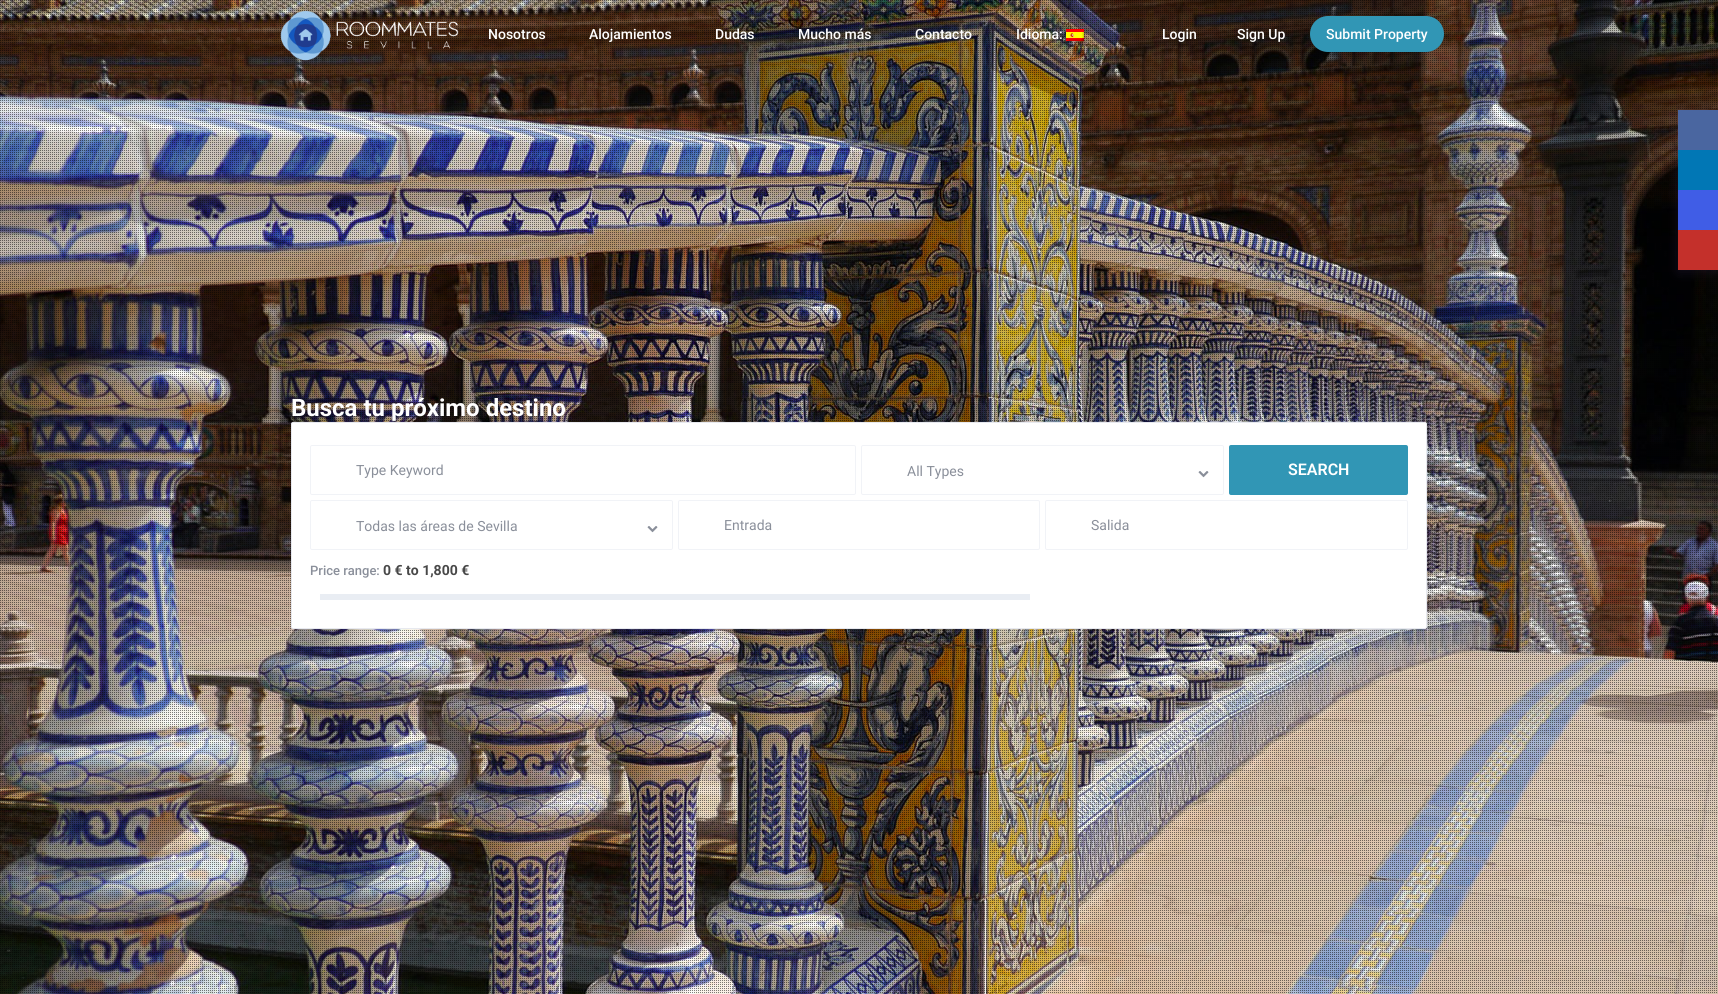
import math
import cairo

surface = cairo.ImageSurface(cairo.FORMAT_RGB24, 1718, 994)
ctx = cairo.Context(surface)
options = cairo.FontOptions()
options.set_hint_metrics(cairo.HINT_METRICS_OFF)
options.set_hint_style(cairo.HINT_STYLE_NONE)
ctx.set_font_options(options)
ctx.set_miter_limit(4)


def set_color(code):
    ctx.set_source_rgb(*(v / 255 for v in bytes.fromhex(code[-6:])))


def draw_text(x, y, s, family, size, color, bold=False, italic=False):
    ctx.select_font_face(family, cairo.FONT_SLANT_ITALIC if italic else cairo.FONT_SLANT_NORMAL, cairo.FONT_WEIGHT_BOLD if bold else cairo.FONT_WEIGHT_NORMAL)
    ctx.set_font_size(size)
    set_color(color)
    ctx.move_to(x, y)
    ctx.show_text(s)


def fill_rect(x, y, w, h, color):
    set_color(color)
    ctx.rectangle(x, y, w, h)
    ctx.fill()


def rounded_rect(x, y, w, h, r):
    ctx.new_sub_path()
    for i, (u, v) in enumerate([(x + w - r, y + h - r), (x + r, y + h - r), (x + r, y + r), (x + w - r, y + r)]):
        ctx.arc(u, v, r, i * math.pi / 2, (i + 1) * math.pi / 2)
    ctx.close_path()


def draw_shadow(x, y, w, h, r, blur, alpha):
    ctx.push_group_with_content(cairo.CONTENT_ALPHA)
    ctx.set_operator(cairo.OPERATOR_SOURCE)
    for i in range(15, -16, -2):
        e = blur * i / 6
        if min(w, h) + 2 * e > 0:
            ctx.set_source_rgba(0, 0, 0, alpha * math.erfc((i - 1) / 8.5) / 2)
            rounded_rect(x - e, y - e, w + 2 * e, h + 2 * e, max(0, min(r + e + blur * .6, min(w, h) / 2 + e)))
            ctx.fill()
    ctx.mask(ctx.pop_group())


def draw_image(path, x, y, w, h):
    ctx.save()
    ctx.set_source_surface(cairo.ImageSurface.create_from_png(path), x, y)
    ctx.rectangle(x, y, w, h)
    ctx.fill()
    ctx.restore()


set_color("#ffffff")
ctx.paint()
draw_image("assets/img3.png", 0, 0, 1718, 994)
draw_image("assets/img4.png", 0, 0, 1717, 993)
draw_image("assets/img1.png", 280, 11, 179, 50)
draw_text(488, 39, "Nosotros", "Roboto Medium", 14, "#ffffff")
draw_text(589, 39, "Alojamientos", "Roboto Medium", 14, "#ffffff")
draw_text(715, 39, "Dudas", "Roboto Medium", 14, "#ffffff")
draw_text(798, 39, "Mucho más", "Roboto Medium", 14, "#ffffff")
draw_text(915, 39, "Contacto", "Roboto Medium", 14, "#ffffff")
draw_text(1016, 39, "Idioma:", "Roboto Medium", 14, "#ffffff")
draw_image("assets/img2.png", 1066, 29, 18, 12)
draw_text(1162, 39, "Login", "Roboto Medium", 14, "#ffffff")
draw_text(1237, 39, "Sign Up", "Roboto Medium", 14, "#ffffff")
set_color("#3196b5")
rounded_rect(1310, 16, 134, 36, 18)
ctx.fill()
draw_text(1326, 39, "Submit Property", "Roboto Medium", 14, "#ffffff")
draw_text(291, 416, "Busca tu próximo destino", "Roboto", 24, "#ffffff", bold=True)
rounded_rect(291.5, 422.5, 1135, 206, 1.5)
ctx.fill_preserve()
set_color("#e7e9ef")
ctx.set_line_width(1)
ctx.stroke()
rounded_rect(310.5, 445.5, 545, 49, 1.5)
set_color("#f1f3f7")
ctx.stroke()
draw_text(356, 475, "Type Keyword", "Roboto", 14, "#8a8f9a")
rounded_rect(861.5, 445.5, 362, 49, 1.5)
set_color("#f1f3f7")
ctx.stroke()
draw_text(907, 476, "All Types", "Roboto", 14, "#8a8f9a")
draw_image("assets/img5.png", 1198, 471, 11, 7)
set_color("#3196b5")
rounded_rect(1229, 445, 179, 50, 2)
ctx.fill()
draw_text(1288, 475, "SEARCH", "Roboto SemiBold", 16, "#ffffff")
rounded_rect(310.5, 500.5, 362, 49, 1.5)
set_color("#f1f3f7")
ctx.stroke()
draw_text(356, 531, "Todas las áreas de Sevilla", "Roboto", 14, "#8a8f9a")
draw_image("assets/img5.png", 647, 526, 11, 7)
rounded_rect(678.5, 500.5, 361, 49, 1.5)
set_color("#f1f3f7")
ctx.stroke()
draw_text(724, 530, "Entrada", "Roboto", 14, "#8a8f9a")
rounded_rect(1045.5, 500.5, 362, 49, 1.5)
set_color("#f1f3f7")
ctx.stroke()
draw_text(1091, 530, "Salida", "Roboto", 14, "#8a8f9a")
draw_text(310, 575, "Price range:", "Roboto Medium", 13, "#8a8f9a")
draw_text(383, 575, "0 € to 1,800 €", "Roboto", 14, "#484848", bold=True)
fill_rect(320, 594, 710, 6, "#e9edf3")
set_color("#b57ffa")
draw_shadow(1678, 112, 40, 160, 0, 5.5, 0.1)
fill_rect(1678, 110, 40, 40, "#4a66a0")
fill_rect(1678, 150, 40, 40, "#0177b5")
fill_rect(1678, 190, 40, 40, "#405de6")
fill_rect(1678, 230, 40, 40, "#c4302b")
surface.write_to_png("output.png")
